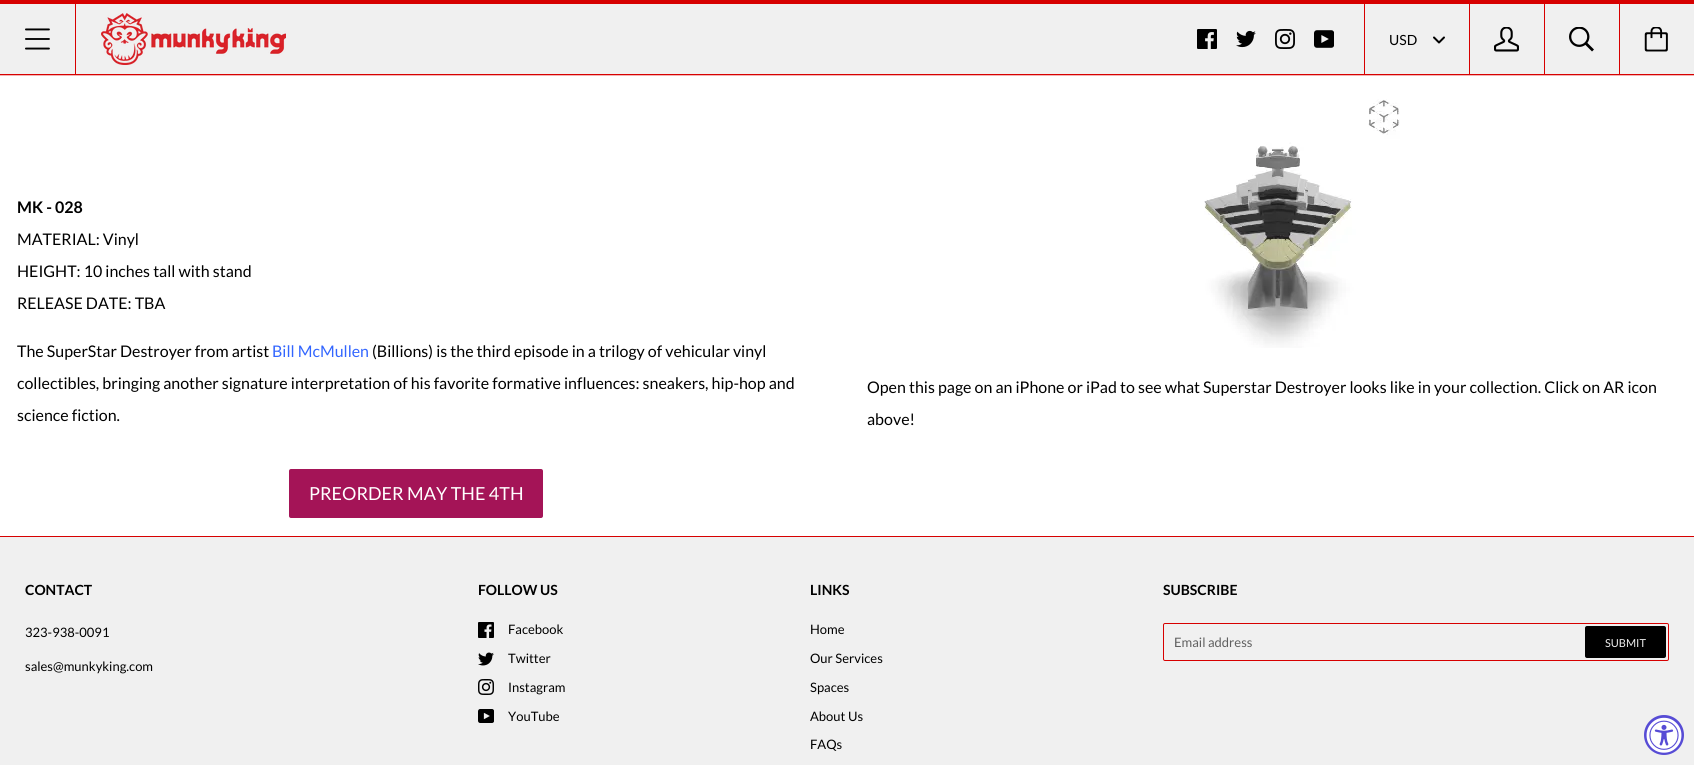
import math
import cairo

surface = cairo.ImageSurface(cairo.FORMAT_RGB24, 1694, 765)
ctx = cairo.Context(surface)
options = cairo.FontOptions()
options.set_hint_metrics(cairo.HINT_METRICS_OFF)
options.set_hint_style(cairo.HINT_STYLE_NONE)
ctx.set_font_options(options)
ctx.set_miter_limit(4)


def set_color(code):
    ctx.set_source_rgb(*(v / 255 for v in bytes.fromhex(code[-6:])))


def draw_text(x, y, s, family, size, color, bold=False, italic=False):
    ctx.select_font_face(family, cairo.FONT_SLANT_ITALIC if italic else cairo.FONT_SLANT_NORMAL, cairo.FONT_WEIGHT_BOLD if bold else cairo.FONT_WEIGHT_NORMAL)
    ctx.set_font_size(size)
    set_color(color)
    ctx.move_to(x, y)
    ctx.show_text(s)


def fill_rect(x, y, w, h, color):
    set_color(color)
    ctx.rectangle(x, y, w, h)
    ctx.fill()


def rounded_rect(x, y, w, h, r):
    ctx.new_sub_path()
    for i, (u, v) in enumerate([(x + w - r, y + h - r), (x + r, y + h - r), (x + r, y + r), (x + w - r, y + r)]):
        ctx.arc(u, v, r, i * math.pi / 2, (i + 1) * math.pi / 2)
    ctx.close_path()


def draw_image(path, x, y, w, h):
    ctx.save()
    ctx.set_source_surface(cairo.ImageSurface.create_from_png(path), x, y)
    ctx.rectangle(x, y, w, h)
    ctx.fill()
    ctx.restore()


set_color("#ffffff")
ctx.paint()
fill_rect(0, 0, 1694, 4, "#d70000")
fill_rect(0, 75, 1694, 1, "#f3b3b3")
fill_rect(0, 4, 1694, 70, "#f0f0f0")
fill_rect(0, 74, 1694, 1, "#d70000")
draw_image("assets/img1.png", 25, 28, 25, 22)
fill_rect(75, 4, 1, 70, "#d70000")
draw_image("assets/img2.png", 101, 13, 185, 52)
draw_image("assets/img3.png", 1197, 29, 20, 20)
draw_image("assets/img4.png", 1236, 30, 20, 18)
draw_image("assets/img5.png", 1275, 29, 20, 20)
draw_image("assets/img6.png", 1314, 30, 20, 18)
fill_rect(1364, 4, 1, 70, "#d70000")
draw_text(1389, 45, "USD", "Lato", 14, "#000000")
draw_image("assets/img7.png", 1433, 36, 12, 8)
fill_rect(1469, 4, 1, 70, "#d70000")
draw_image("assets/img8.png", 1494, 27, 25, 25)
fill_rect(1544, 4, 1, 70, "#d70000")
draw_image("assets/img9.png", 1569, 27, 25, 25)
fill_rect(1619, 4, 1, 70, "#d70000")
draw_image("assets/img10.png", 1644, 27, 24, 25)
draw_text(17, 213, "MK - 028", "Lato", 16, "#000000", bold=True)
draw_text(17, 245, "MATERIAL: Vinyl", "Lato", 16, "#000000")
draw_text(17, 277, "HEIGHT: 10 inches tall with stand", "Lato", 16, "#000000")
draw_text(17, 309, "RELEASE DATE: TBA", "Lato", 16, "#000000")
draw_text(17, 357, "The SuperStar Destroyer from artist", "Lato", 16, "#000000")
draw_text(272, 357, "Bill McMullen", "Lato", 16, "#3366ff")
draw_text(372, 357, "(Billions) is the third episode in a trilogy of vehicular vinyl", "Lato", 16, "#000000")
draw_text(17, 389, "collectibles, bringing another signature interpretation of his favorite formative influences: sneakers, hip-hop and", "Lato", 16, "#000000")
draw_text(17, 421, "science fiction.", "Lato", 16, "#000000")
set_color("#a41457")
rounded_rect(289, 469, 254, 49, 2)
ctx.fill()
draw_text(309, 500, "PREORDER MAY THE 4TH", "Lato", 18, "#ffffff")
draw_image("assets/img11.png", 1204, 99, 196, 249)
draw_text(867, 393, "Open this page on an iPhone or iPad to see what Superstar Destroyer looks like in your collection. Click on AR icon", "Lato", 16, "#000000")
draw_text(867, 425, "above!", "Lato", 16, "#000000")
fill_rect(0, 537, 1694, 228, "#f0f0f0")
fill_rect(0, 536, 1694, 1, "#d70000")
draw_text(25, 595, "CONTACT", "Lato", 14, "#000000", bold=True)
draw_text(25, 637, "323-938-0091", "Lato", 13, "#000000")
draw_text(25, 671, "sales@munkyking.com", "Lato", 13, "#000000")
draw_text(478, 595, "FOLLOW US", "Lato", 14, "#000000", bold=True)
draw_image("assets/img12.png", 478, 622, 16, 16)
draw_text(508, 634, "Facebook", "Lato", 13, "#000000")
draw_image("assets/img13.png", 478, 652, 16, 14)
draw_text(508, 663, "Twitter", "Lato", 13, "#000000")
draw_image("assets/img14.png", 478, 679, 16, 16)
draw_text(508, 692, "Instagram", "Lato", 13, "#000000")
draw_image("assets/img15.png", 478, 709, 16, 14)
draw_text(508, 721, "YouTube", "Lato", 13, "#000000")
draw_text(810, 595, "LINKS", "Lato", 14, "#000000", bold=True)
draw_text(810, 634, "Home", "Lato", 13, "#000000")
draw_text(810, 663, "Our Services", "Lato", 13, "#000000")
draw_text(810, 692, "Spaces", "Lato", 13, "#000000")
draw_text(810, 721, "About Us", "Lato", 13, "#000000")
draw_text(810, 749, "FAQs", "Lato", 13, "#000000")
draw_text(1163, 595, "SUBSCRIBE", "Lato", 14, "#000000", bold=True)
rounded_rect(1163.5, 623.5, 505, 37, 1.5)
set_color("#d70000")
ctx.set_line_width(1)
ctx.stroke()
draw_text(1174, 647, "Email address", "Lato", 13, "#606060")
set_color("#000000")
rounded_rect(1585, 626, 81, 32, 2)
ctx.fill()
draw_text(1605, 647, "SUBMIT", "Lato", 11, "#f0f0f0")
set_color("#574cd5")
ctx.new_path()
ctx.arc(1664, 735, 20, 0, 2 * math.pi)
ctx.fill()
draw_image("assets/img16.png", 1646, 717, 36, 36)
surface.write_to_png("output.png")
